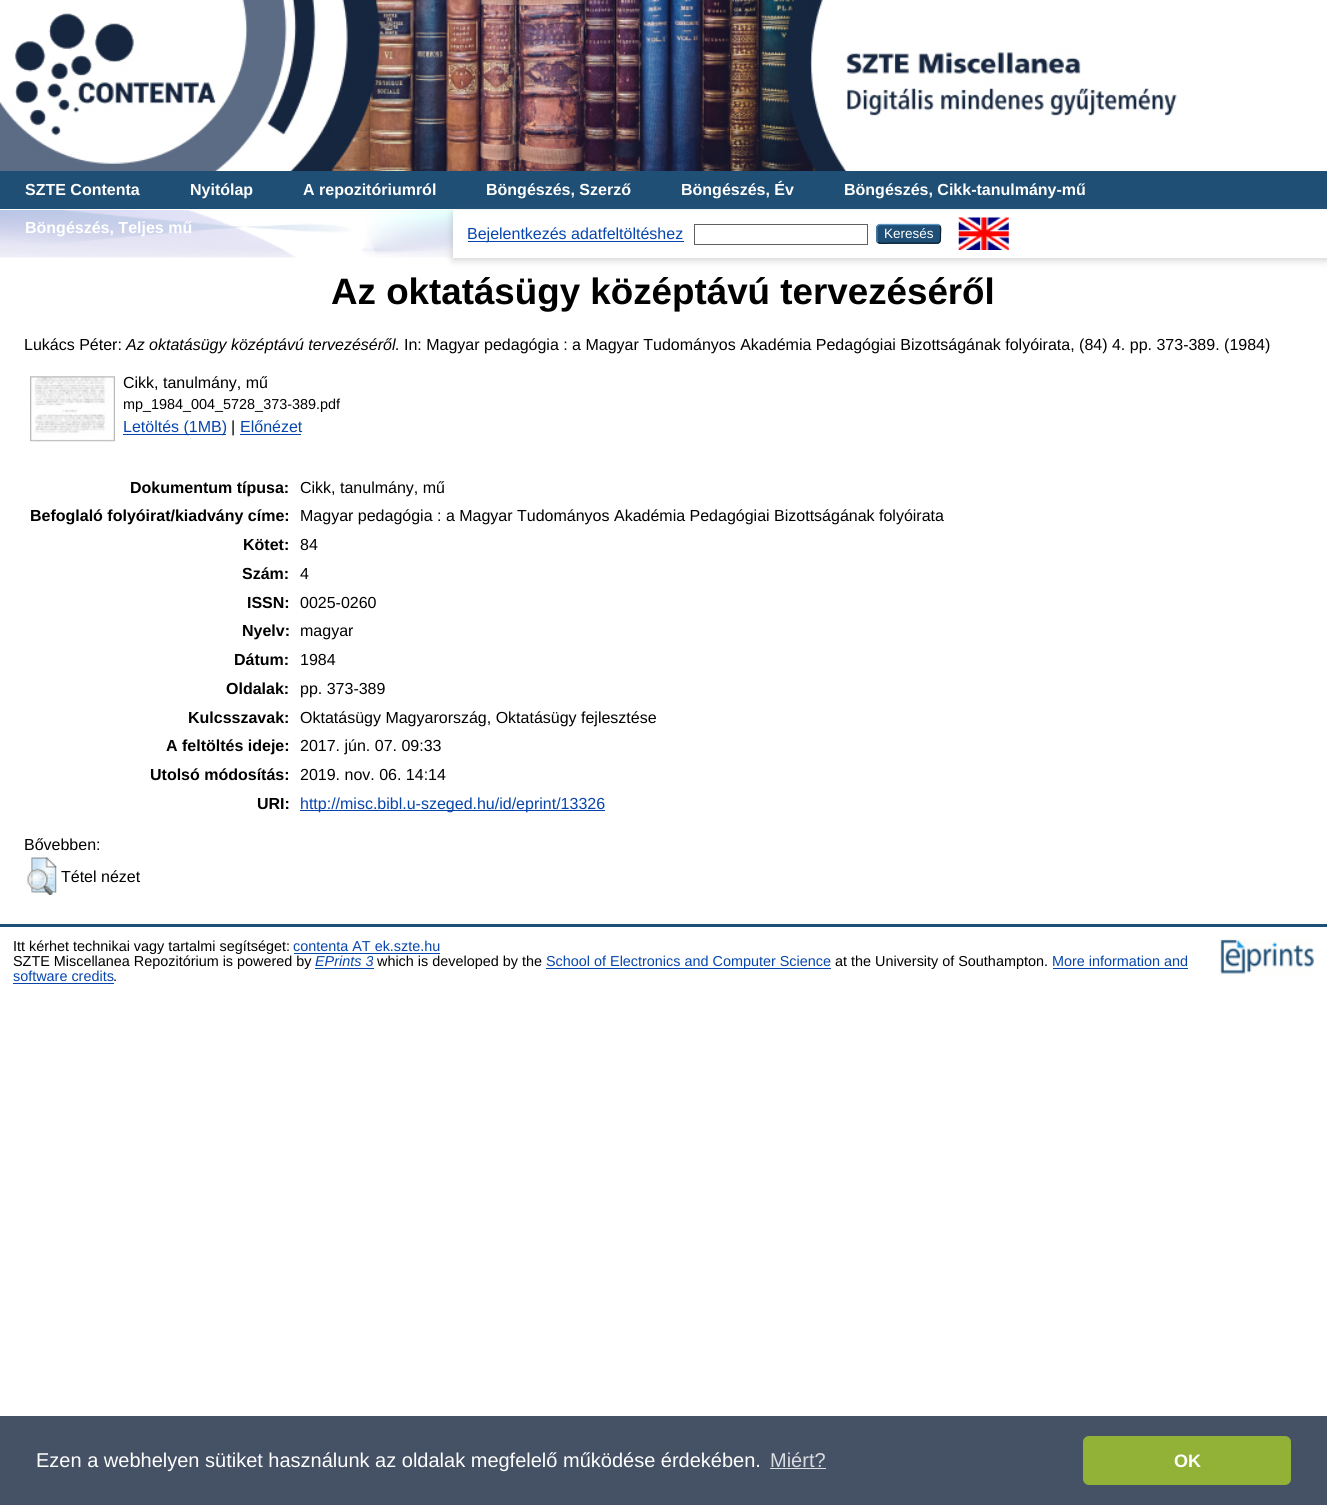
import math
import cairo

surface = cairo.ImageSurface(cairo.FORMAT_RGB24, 1327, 1505)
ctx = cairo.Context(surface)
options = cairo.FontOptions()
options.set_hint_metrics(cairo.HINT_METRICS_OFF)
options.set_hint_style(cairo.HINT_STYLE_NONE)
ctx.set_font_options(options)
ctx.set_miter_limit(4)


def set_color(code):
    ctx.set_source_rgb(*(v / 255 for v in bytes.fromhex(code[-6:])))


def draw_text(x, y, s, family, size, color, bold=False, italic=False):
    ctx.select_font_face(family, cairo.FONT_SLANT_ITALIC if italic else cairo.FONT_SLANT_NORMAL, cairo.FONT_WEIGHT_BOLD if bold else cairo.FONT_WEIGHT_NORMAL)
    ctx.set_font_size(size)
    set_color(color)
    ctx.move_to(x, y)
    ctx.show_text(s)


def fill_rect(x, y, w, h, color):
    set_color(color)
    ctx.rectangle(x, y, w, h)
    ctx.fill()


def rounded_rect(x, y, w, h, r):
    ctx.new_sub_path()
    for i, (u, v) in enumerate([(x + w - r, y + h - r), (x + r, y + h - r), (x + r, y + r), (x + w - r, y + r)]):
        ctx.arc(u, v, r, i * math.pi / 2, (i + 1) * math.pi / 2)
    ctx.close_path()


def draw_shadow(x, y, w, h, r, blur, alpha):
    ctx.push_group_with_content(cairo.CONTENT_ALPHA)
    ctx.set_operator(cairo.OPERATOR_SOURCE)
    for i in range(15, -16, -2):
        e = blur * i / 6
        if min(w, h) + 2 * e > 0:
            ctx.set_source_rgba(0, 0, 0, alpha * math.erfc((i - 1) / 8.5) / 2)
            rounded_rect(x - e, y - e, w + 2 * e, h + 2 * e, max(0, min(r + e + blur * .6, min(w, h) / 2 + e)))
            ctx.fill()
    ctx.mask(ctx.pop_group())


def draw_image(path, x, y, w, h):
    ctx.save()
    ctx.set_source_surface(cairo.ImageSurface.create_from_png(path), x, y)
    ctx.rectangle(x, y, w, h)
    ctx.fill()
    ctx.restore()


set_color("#ffffff")
ctx.paint()
draw_image("assets/img1.png", 0, 210, 453, 48)
draw_image("assets/img2.png", 0, 0, 1177, 171)
fill_rect(0, 171, 1327, 38, "#204f76")
draw_text(25, 195, "SZTE Contenta", "Liberation Sans", 16, "#ffffff", bold=True)
draw_text(190, 195, "Nyitólap", "Liberation Sans", 16, "#ffffff", bold=True)
draw_text(303, 195, "A repozitóriumról", "Liberation Sans", 16, "#ffffff", bold=True)
draw_text(486, 195, "Böngészés, Szerző", "Liberation Sans", 16, "#ffffff", bold=True)
draw_text(681, 195, "Böngészés, Év", "Liberation Sans", 16, "#ffffff", bold=True)
draw_text(844, 195, "Böngészés, Cikk-tanulmány-mű", "Liberation Sans", 16, "#ffffff", bold=True)
draw_text(25, 233, "Böngészés, Teljes mű", "Liberation Sans", 16, "#ffffff", bold=True)
set_color("#646464")
draw_shadow(453, 213, 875, 47, 0, 4, 0.3)
fill_rect(453, 210, 874, 48, "#ffffff")
fill_rect(468, 241, 216, 1, "#0645ad")
draw_text(467, 239, "Bejelentkezés adatfeltöltéshez", "Liberation Sans", 16, "#0645ad")
ctx.rectangle(694.5, 224.5, 173, 20)
set_color("#606060")
ctx.set_line_width(1)
ctx.stroke()
set_color("#1f4f76")
rounded_rect(876, 224, 65, 20, 4)
ctx.fill()
ctx.new_path()
ctx.move_to(878, 225.5)
ctx.line_to(879.5, 224.5)
ctx.line_to(938, 224.5)
ctx.line_to(939.5, 225.5)
set_color("#5b97c7")
ctx.set_line_width(1.2)
ctx.stroke()
ctx.new_path()
ctx.move_to(939.5, 225.5)
ctx.curve_to(941.5, 227.5, 940.5, 231.5, 940.5, 234)
ctx.curve_to(940.5, 245, 940.5, 243, 928, 243)
ctx.line_to(889.5, 243)
ctx.curve_to(889, 243, 880, 244.5, 878, 242)
set_color("#0d2131")
ctx.stroke()
ctx.new_path()
ctx.move_to(878, 242)
ctx.curve_to(876, 240.5, 877, 236, 877, 234)
ctx.curve_to(877, 231.5, 876, 227, 878, 225.5)
set_color("#5287b3")
ctx.stroke()
draw_text(884, 238, "Keresés", "Liberation Sans", 13.5, "#ffffff")
draw_image("assets/img3.png", 958, 217, 51, 33)
draw_text(331, 304, "Az oktatásügy középtávú tervezéséről", "Liberation Sans", 36.75, "#000000", bold=True)
draw_text(24, 350, "Lukács Péter:", "Liberation Sans", 16, "#000000")
draw_text(126, 350, "Az oktatásügy középtávú tervezéséről.", "Liberation Sans", 16, "#000000", italic=True)
draw_text(404, 350, "In: Magyar pedagógia : a Magyar Tudományos Akadémia Pedagógiai Bizottságának folyóirata, (84) 4. pp. 373-389. (1984)", "Liberation Sans", 16, "#000000")
draw_image("assets/img4.png", 30, 376, 85, 66)
draw_text(123, 388, "Cikk, tanulmány, mű", "Liberation Sans", 16, "#000000")
draw_text(123, 409, "mp_1984_004_5728_373-389.pdf", "Liberation Sans", 14.4, "#000000")
fill_rect(123, 434, 103, 1, "#0645ad")
draw_text(123, 432, "Letöltés (1MB)", "Liberation Sans", 16, "#0645ad")
draw_text(231, 432, "|", "Liberation Sans", 16, "#000000")
draw_text(240, 432, "Előnézet", "Liberation Sans", 16, "#0645ad")
fill_rect(240, 434, 61, 1, "#0645ad")
draw_text(130, 493, "Dokumentum típusa:", "Liberation Sans", 16, "#000000", bold=True)
draw_text(300, 493, "Cikk, tanulmány, mű", "Liberation Sans", 16, "#000000")
draw_text(30, 521, "Befoglaló folyóirat/kiadvány címe:", "Liberation Sans", 16, "#000000", bold=True)
draw_text(300, 521, "Magyar pedagógia : a Magyar Tudományos Akadémia Pedagógiai Bizottságának folyóirata", "Liberation Sans", 16, "#000000")
draw_text(243, 550, "Kötet:", "Liberation Sans", 16, "#000000", bold=True)
draw_text(300, 550, "84", "Liberation Sans", 16, "#000000")
draw_text(242, 579, "Szám:", "Liberation Sans", 16, "#000000", bold=True)
draw_text(300, 579, "4", "Liberation Sans", 16, "#000000")
draw_text(247, 608, "ISSN:", "Liberation Sans", 16, "#000000", bold=True)
draw_text(300, 608, "0025-0260", "Liberation Sans", 16, "#000000")
draw_text(242, 636, "Nyelv:", "Liberation Sans", 16, "#000000", bold=True)
draw_text(300, 636, "magyar", "Liberation Sans", 16, "#000000")
draw_text(234, 665, "Dátum:", "Liberation Sans", 16, "#000000", bold=True)
draw_text(300, 665, "1984", "Liberation Sans", 16, "#000000")
draw_text(226, 694, "Oldalak:", "Liberation Sans", 16, "#000000", bold=True)
draw_text(300, 694, "pp. 373-389", "Liberation Sans", 16, "#000000")
draw_text(188, 723, "Kulcsszavak:", "Liberation Sans", 16, "#000000", bold=True)
draw_text(300, 723, "Oktatásügy Magyarország, Oktatásügy fejlesztése", "Liberation Sans", 16, "#000000")
draw_text(166, 751, "A feltöltés ideje:", "Liberation Sans", 16, "#000000", bold=True)
draw_text(300, 751, "2017. jún. 07. 09:33", "Liberation Sans", 16, "#000000")
draw_text(150, 780, "Utolsó módosítás:", "Liberation Sans", 16, "#000000", bold=True)
draw_text(300, 780, "2019. nov. 06. 14:14", "Liberation Sans", 16, "#000000")
draw_text(257, 809, "URI:", "Liberation Sans", 16, "#000000", bold=True)
fill_rect(300, 810, 305, 1, "#0645ad")
draw_text(300, 809, "http://misc.bibl.u-szeged.hu/id/eprint/13326", "Liberation Sans", 16, "#0645ad")
draw_text(24, 850, "Bővebben:", "Liberation Sans", 16, "#000000")
draw_image("assets/img5.png", 27, 857, 30, 38)
draw_text(61, 882, "Tétel nézet", "Liberation Sans", 16, "#000000")
fill_rect(0, 924, 1327, 3, "#204f76")
draw_text(13, 951, "Itt kérhet technikai vagy tartalmi segítséget:", "Liberation Sans", 14.4, "#000000")
draw_text(293, 951, "contenta AT ek.szte.hu", "Liberation Sans", 14.4, "#0645ad")
fill_rect(294, 953, 146, 1, "#0645ad")
draw_text(13, 966, "SZTE Miscellanea Repozitórium is powered by", "Liberation Sans", 14.4, "#000000")
draw_text(315, 966, "EPrints 3", "Liberation Sans", 14.4, "#0645ad", italic=True)
fill_rect(315, 968, 59, 1, "#0645ad")
draw_text(377, 966, "which is developed by the", "Liberation Sans", 14.4, "#000000")
fill_rect(546, 968, 285, 1, "#0645ad")
draw_text(546, 966, "School of Electronics and Computer Science", "Liberation Sans", 14.4, "#0645ad")
draw_text(835, 966, "at the University of Southampton.", "Liberation Sans", 14.4, "#000000")
draw_text(1052, 966, "More information and", "Liberation Sans", 14.4, "#0645ad")
fill_rect(1053, 968, 135, 1, "#0645ad")
draw_text(13, 981, "software credits", "Liberation Sans", 14.4, "#0645ad")
fill_rect(13, 983, 101, 1, "#0645ad")
draw_text(113, 981, ".", "Liberation Sans", 14.4, "#000000")
draw_image("assets/img6.png", 1219, 939, 95, 36)
fill_rect(0, 1416, 1327, 89, "#455165")
draw_text(36, 1467, "Ezen a webhelyen sütiket használunk az oldalak megfelelő működése érdekében.", "Liberation Sans", 20, "#ffffff")
draw_text(770, 1467, "Miért?", "Liberation Sans", 20, "#dadce0")
fill_rect(770, 1468, 56, 1, "#dadce0")
set_color("#91b236")
rounded_rect(1083, 1436, 208, 49, 6)
ctx.fill()
draw_text(1174, 1467, "OK", "Liberation Sans", 18, "#ffffff", bold=True)
surface.write_to_png("output.png")
